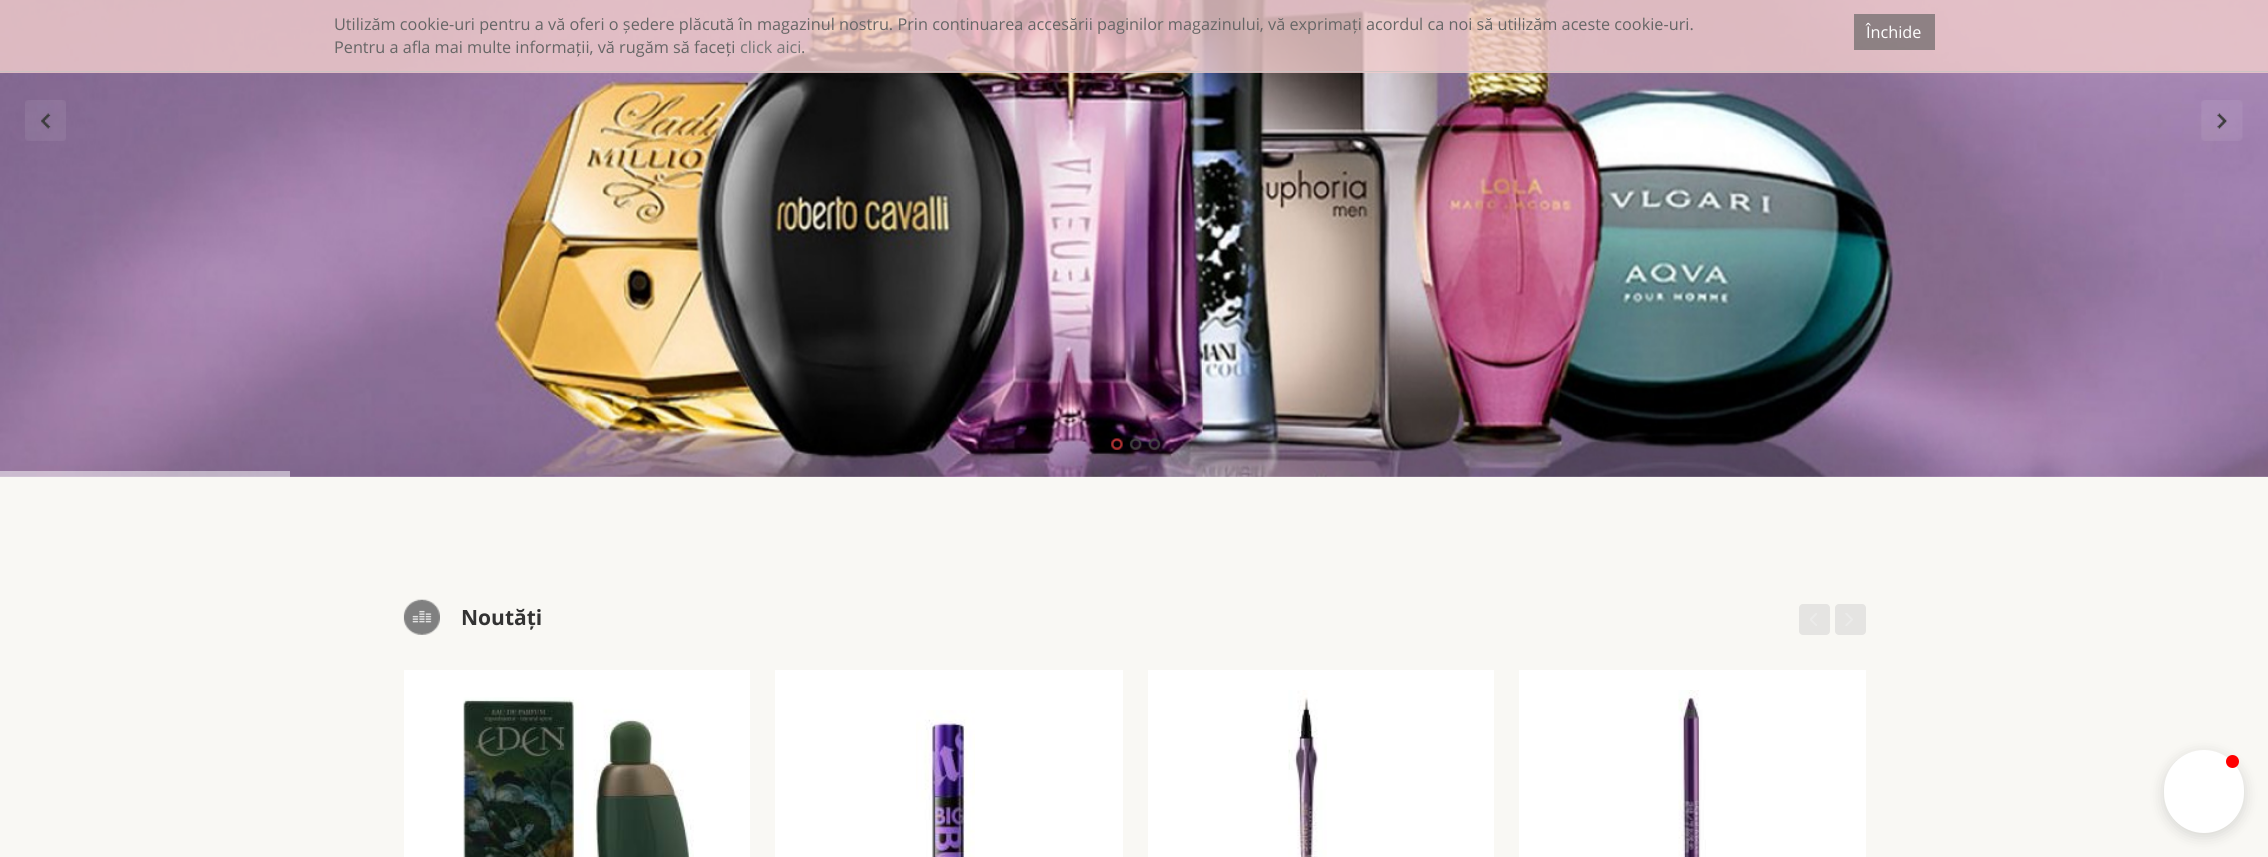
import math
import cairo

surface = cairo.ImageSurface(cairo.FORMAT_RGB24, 2268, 857)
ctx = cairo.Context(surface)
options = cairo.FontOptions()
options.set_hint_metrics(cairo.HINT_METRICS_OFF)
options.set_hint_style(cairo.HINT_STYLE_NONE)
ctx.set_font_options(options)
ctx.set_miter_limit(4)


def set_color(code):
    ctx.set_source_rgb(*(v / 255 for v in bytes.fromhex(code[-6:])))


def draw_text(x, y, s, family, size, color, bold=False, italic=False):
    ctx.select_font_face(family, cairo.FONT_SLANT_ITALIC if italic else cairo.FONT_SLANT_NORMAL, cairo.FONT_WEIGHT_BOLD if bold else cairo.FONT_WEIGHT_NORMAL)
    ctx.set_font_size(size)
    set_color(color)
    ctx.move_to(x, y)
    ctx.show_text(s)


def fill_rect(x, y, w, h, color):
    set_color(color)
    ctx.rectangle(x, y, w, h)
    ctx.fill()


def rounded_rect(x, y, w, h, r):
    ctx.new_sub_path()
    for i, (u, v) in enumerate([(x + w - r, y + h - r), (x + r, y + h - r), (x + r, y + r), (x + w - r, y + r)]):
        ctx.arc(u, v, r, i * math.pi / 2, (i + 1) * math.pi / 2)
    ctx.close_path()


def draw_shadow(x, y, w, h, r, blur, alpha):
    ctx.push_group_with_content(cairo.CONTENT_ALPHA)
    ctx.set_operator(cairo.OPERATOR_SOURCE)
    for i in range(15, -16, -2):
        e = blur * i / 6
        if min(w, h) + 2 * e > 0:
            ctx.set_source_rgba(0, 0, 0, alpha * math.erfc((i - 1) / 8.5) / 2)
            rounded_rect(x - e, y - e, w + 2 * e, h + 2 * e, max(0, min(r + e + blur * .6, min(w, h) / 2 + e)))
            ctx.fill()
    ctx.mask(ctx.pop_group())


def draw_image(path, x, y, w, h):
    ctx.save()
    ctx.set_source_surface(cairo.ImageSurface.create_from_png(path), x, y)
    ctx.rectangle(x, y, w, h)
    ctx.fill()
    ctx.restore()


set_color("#f9f8f4")
ctx.paint()
draw_image("assets/img1.png", 0, 0, 2268, 477)
ctx.set_source_rgba(0.941, 0.8, 0.8, 0.82)
ctx.rectangle(0, 0, 2268, 73)
ctx.fill()
ctx.set_source_rgba(0.765, 0.765, 0.765, 0.73)
ctx.rectangle(0, 71, 2268, 1)
ctx.fill()
draw_text(334, 30, "Utilizăm cookie-uri pentru a vă oferi o ședere plăcută în magazinul nostru. Prin continuarea accesării paginilor magazinului, vă exprimați acordul ca noi să utilizăm aceste cookie-uri.", "Open Sans", 16.25, "#666666")
ctx.set_source_rgba(0.38, 0.38, 0.38, 0.65)
ctx.rectangle(1854, 14, 81, 36)
ctx.fill()
draw_text(1866, 38, "Închide", "Open Sans", 16.25, "#ffffff")
draw_text(334, 53, "Pentru a afla mai multe informații, vă rugăm să faceți", "Open Sans", 16.25, "#666666")
draw_text(740, 53, "click aici", "Open Sans", 16.25, "#777777")
draw_text(801, 53, ".", "Open Sans", 16.25, "#666666")
ctx.set_source_rgba(1, 1, 1, 0.5)
ctx.rectangle(0, 471, 290, 6)
ctx.fill()
draw_image("assets/img2.png", 25, 100, 41, 41)
draw_image("assets/img3.png", 2201, 100, 42, 41)
draw_image("assets/img4.png", 1111, 438, 12, 12)
draw_image("assets/img5.png", 1129, 438, 13, 12)
draw_image("assets/img6.png", 1148, 438, 13, 12)
set_color("#e5e4e2")
rounded_rect(1799, 604, 31, 31, 4)
ctx.fill()
draw_image("assets/img7.png", 1810, 613, 7, 13)
rounded_rect(1835, 604, 31, 31, 4)
ctx.fill()
draw_image("assets/img8.png", 1845, 613, 8, 13)
fill_rect(404, 670, 346, 187, "#ffffff")
draw_image("assets/img9.png", 463, 697, 231, 160)
fill_rect(775, 670, 348, 187, "#ffffff")
draw_image("assets/img10.png", 916, 710, 59, 147)
fill_rect(1148, 670, 346, 187, "#ffffff")
draw_image("assets/img11.png", 1288, 690, 39, 167)
fill_rect(1519, 670, 347, 187, "#ffffff")
draw_image("assets/img12.png", 1678, 690, 28, 167)
draw_image("assets/img13.png", 403, 599, 37, 36)
draw_text(461, 625, "Noutăți", "Open Sans", 21, "#333333", bold=True)
set_color("#000000")
draw_shadow(2164, 754, 80, 82, 40, 7.5, 0.15)
set_color("#ffffff")
rounded_rect(2164, 750, 80, 83, 40)
ctx.fill()
set_color("#ff0000")
ctx.arc(2232.5, 761.5, 6.5, 0, 2 * math.pi)
ctx.fill()
surface.write_to_png("output.png")
